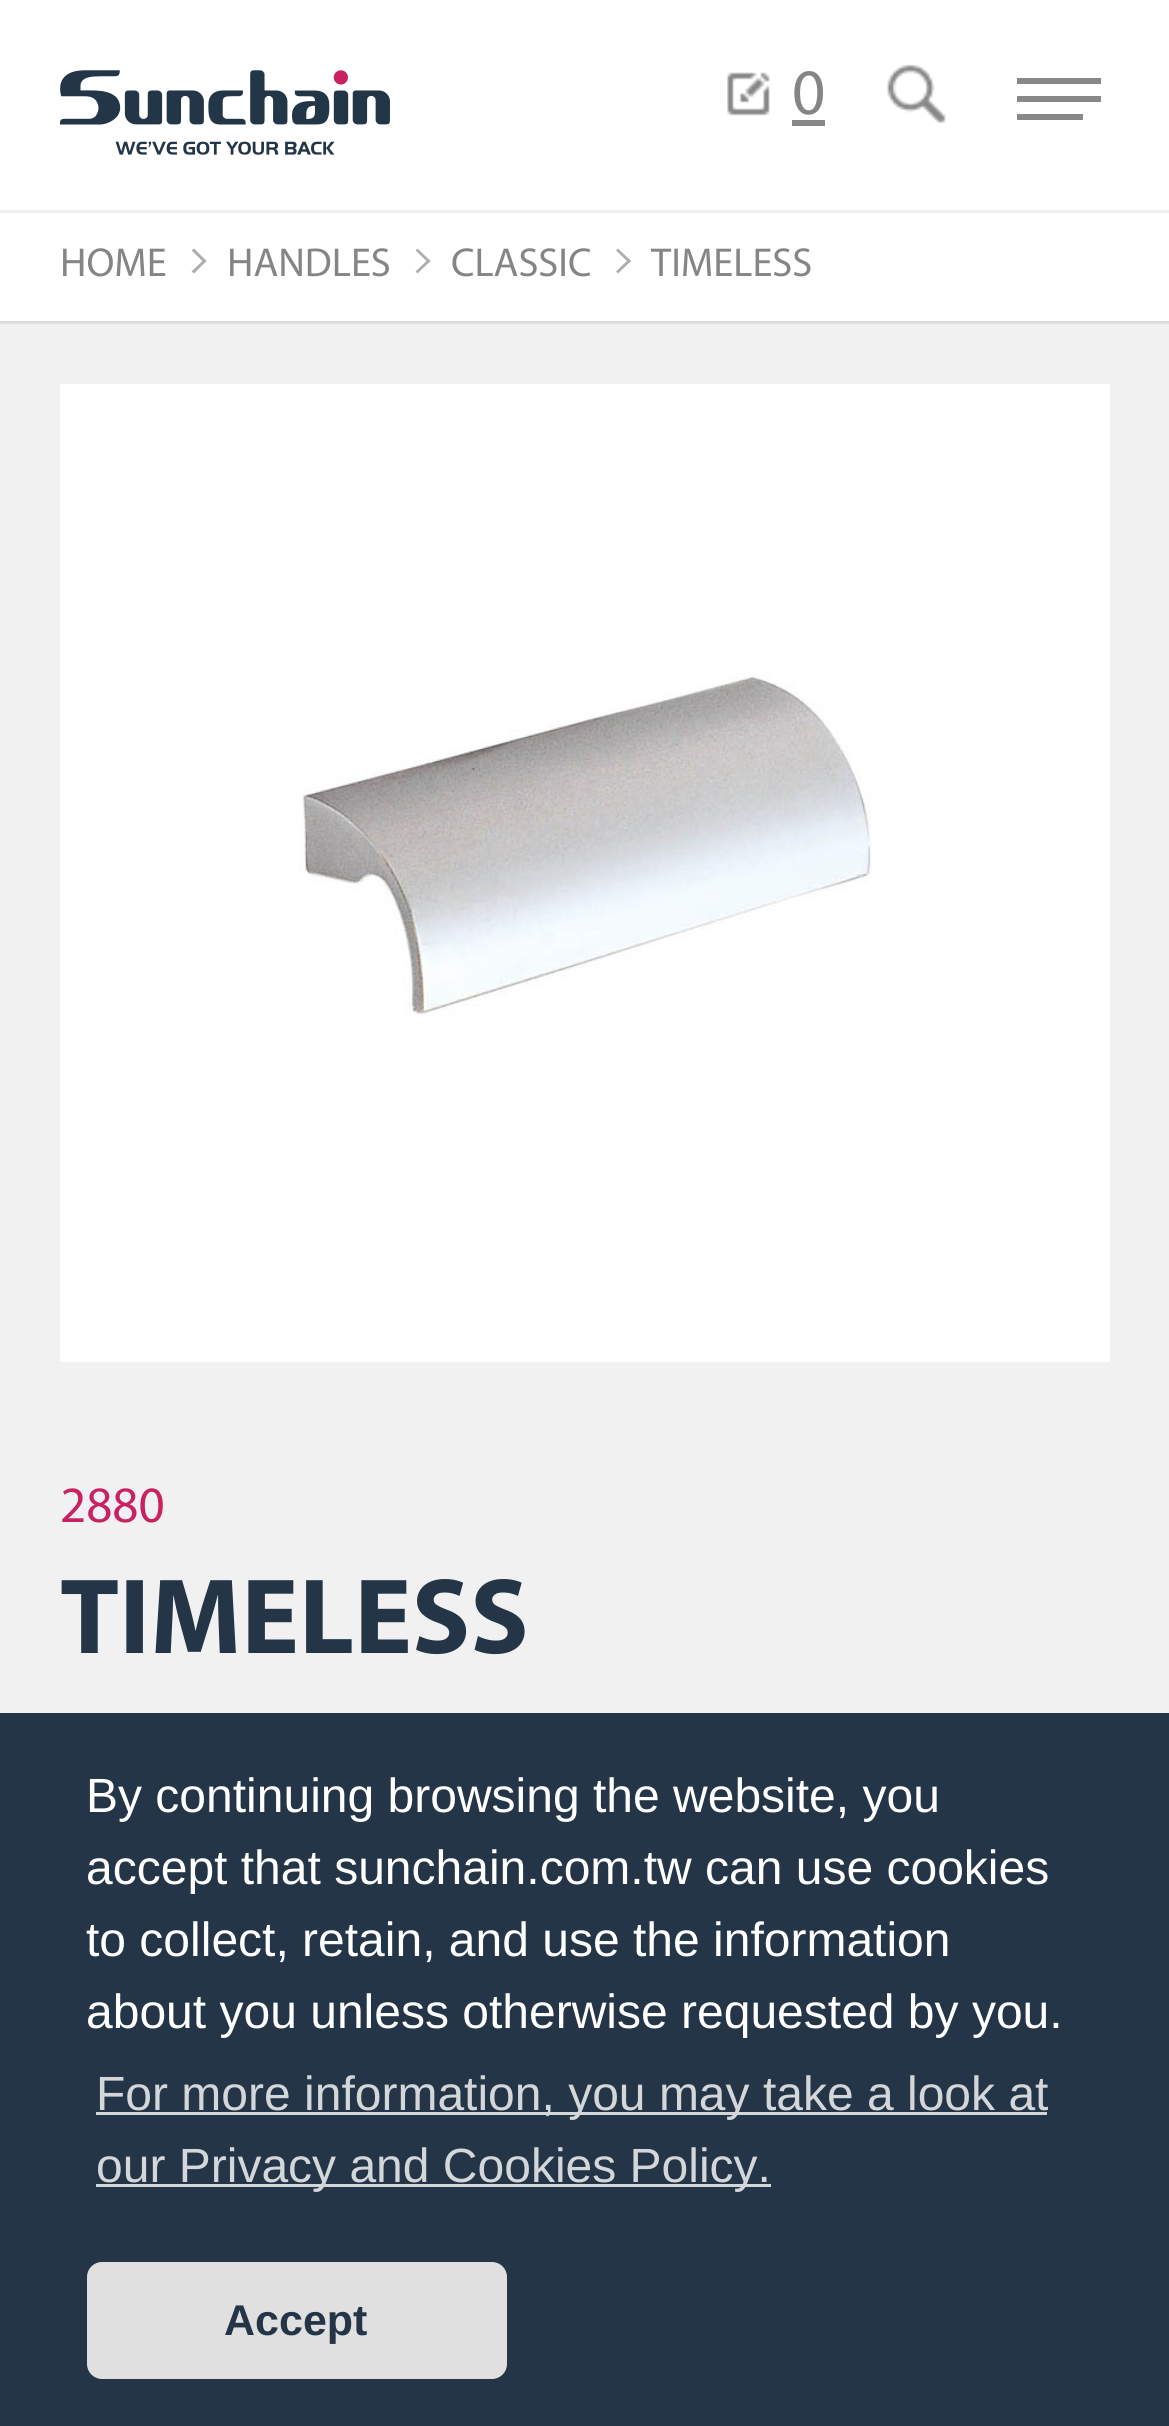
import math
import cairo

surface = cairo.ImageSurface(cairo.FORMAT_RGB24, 1169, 2426)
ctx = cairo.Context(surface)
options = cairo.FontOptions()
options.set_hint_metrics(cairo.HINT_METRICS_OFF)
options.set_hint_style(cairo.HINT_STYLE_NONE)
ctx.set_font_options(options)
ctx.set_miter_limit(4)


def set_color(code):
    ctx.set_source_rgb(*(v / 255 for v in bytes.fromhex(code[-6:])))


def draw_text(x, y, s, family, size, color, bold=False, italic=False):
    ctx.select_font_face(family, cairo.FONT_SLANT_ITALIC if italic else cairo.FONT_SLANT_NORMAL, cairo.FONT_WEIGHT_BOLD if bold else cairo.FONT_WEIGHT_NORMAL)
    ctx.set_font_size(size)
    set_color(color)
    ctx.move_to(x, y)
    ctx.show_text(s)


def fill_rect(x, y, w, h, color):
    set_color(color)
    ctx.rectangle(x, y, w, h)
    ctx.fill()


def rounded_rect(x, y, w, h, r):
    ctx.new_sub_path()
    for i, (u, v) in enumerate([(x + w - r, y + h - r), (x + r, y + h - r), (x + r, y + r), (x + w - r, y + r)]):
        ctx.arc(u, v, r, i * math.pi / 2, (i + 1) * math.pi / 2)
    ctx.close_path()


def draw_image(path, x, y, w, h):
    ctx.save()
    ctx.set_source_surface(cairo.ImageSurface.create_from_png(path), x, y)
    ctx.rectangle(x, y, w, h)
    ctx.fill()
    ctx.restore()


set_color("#ffffff")
ctx.paint()
draw_image("assets/img1.png", 60, 70, 330, 85)
draw_image("assets/img2.png", 727, 72, 43, 44)
draw_text(792, 114, "0", "Myriad", 65, "#858585")
fill_rect(792, 120, 33, 6, "#888888")
draw_image("assets/img3.png", 887, 64, 59, 59)
fill_rect(1017, 78, 84, 6, "#888888")
fill_rect(1017, 96, 84, 6, "#888888")
fill_rect(1017, 114, 66, 6, "#888888")
fill_rect(0, 210, 1169, 3, "#eeeeee")
fill_rect(0, 321, 1169, 3, "#dedede")
draw_text(60, 276, "HOME", "Myriad", 40.5, "#858585")
set_color("#adadad")
ctx.new_path()
ctx.move_to(194, 248.5)
ctx.line_to(206.5, 261)
ctx.line_to(204.5, 263)
ctx.line_to(191.5, 250.5)
ctx.close_path()
ctx.fill()
ctx.new_path()
ctx.move_to(204.5, 259)
ctx.line_to(206.5, 261)
ctx.line_to(194, 273.5)
ctx.line_to(191.5, 271.5)
ctx.close_path()
ctx.fill()
draw_text(227, 276, "HANDLES", "Myriad", 40.5, "#858585")
set_color("#adadad")
ctx.new_path()
ctx.move_to(417.5, 248.5)
ctx.line_to(430.5, 261)
ctx.line_to(428.5, 263)
ctx.line_to(415.5, 250.5)
ctx.close_path()
ctx.fill()
ctx.new_path()
ctx.move_to(428.5, 259)
ctx.line_to(430.5, 261)
ctx.line_to(417.5, 273.5)
ctx.line_to(415.5, 271.5)
ctx.close_path()
ctx.fill()
draw_text(451, 276, "CLASSIC", "Myriad", 40.5, "#858585")
set_color("#adadad")
ctx.new_path()
ctx.move_to(618, 248.5)
ctx.line_to(631, 261)
ctx.line_to(629, 263)
ctx.line_to(616, 250.5)
ctx.close_path()
ctx.fill()
ctx.new_path()
ctx.move_to(629, 259)
ctx.line_to(631, 261)
ctx.line_to(618, 273.5)
ctx.line_to(616, 271.5)
ctx.close_path()
ctx.fill()
draw_text(651, 276, "TIMELESS", "Myriad", 40.5, "#858585")
fill_rect(0, 324, 1169, 1389, "#f1f1f1")
draw_image("assets/img4.png", 60, 384, 1050, 978)
draw_text(60, 1522, "2880", "Myriad", 51, "#c82360")
draw_text(60, 1653, "TIMELESS", "Myriad", 108, "#233547", bold=True)
fill_rect(0, 1713, 1169, 713, "#233547")
draw_text(86, 1812, "By continuing browsing the website, you", "Liberation Sans", 48, "#ffffff")
draw_text(86, 1884, "accept that sunchain.com.tw can use cookies", "Liberation Sans", 48, "#ffffff")
draw_text(86, 1956, "to collect, retain, and use the information", "Liberation Sans", 48, "#ffffff")
draw_text(86, 2028, "about you unless otherwise requested by you.", "Liberation Sans", 48, "#ffffff")
fill_rect(96, 2112, 951, 3, "#d3d7da")
draw_text(96, 2110, "For more information, you may take a look at", "Liberation Sans", 48, "#d3d7da")
fill_rect(96, 2184, 675, 3, "#d3d7da")
draw_text(96, 2182, "our Privacy and Cookies Policy.", "Liberation Sans", 48, "#d3d7da")
set_color("#e0e0e0")
rounded_rect(87, 2262, 420, 117, 15)
ctx.fill()
draw_text(224, 2335, "Accept", "Liberation Sans", 43, "#233547", bold=True)
surface.write_to_png("output.png")
